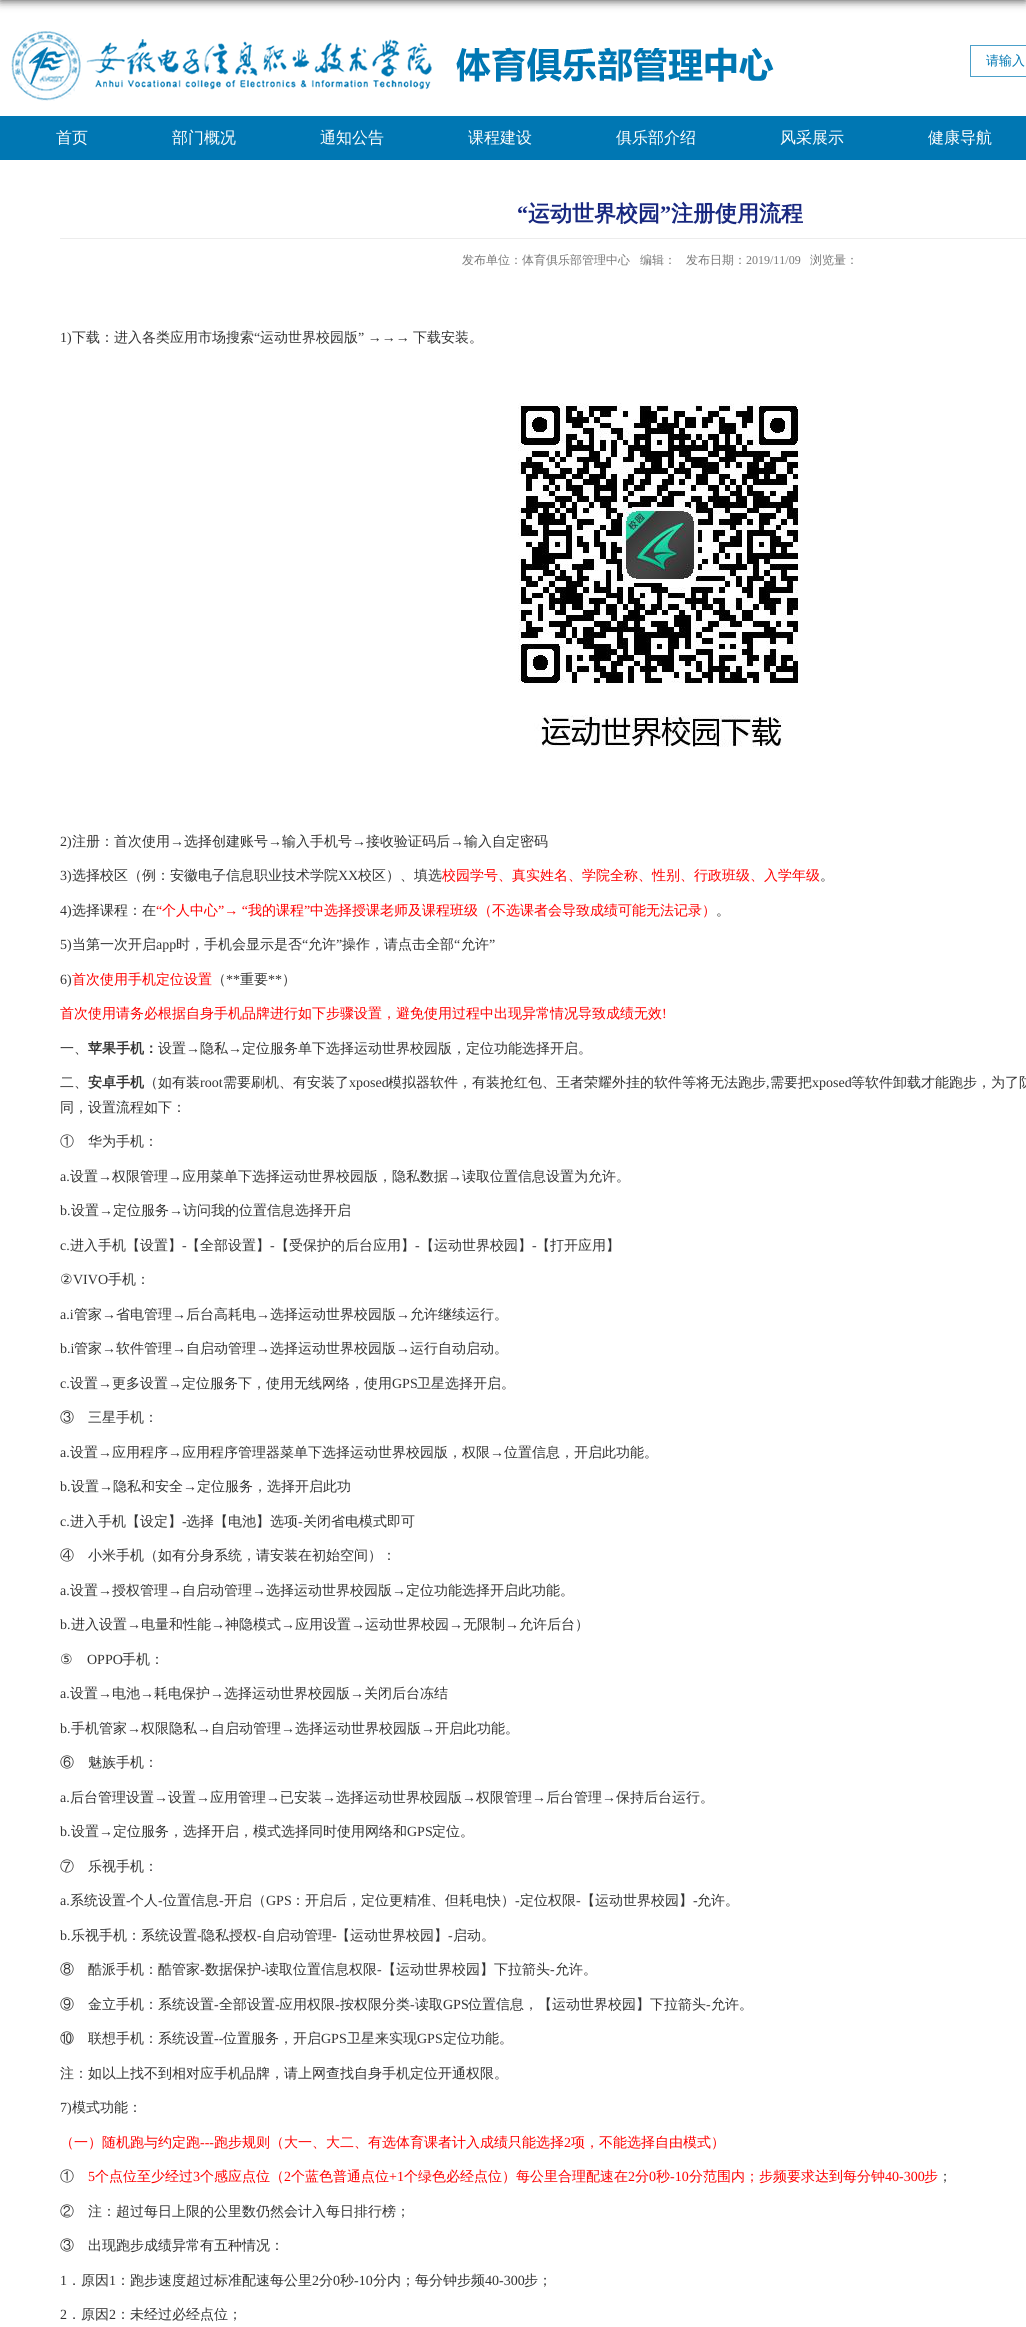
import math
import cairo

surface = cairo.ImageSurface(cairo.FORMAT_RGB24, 1026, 2327)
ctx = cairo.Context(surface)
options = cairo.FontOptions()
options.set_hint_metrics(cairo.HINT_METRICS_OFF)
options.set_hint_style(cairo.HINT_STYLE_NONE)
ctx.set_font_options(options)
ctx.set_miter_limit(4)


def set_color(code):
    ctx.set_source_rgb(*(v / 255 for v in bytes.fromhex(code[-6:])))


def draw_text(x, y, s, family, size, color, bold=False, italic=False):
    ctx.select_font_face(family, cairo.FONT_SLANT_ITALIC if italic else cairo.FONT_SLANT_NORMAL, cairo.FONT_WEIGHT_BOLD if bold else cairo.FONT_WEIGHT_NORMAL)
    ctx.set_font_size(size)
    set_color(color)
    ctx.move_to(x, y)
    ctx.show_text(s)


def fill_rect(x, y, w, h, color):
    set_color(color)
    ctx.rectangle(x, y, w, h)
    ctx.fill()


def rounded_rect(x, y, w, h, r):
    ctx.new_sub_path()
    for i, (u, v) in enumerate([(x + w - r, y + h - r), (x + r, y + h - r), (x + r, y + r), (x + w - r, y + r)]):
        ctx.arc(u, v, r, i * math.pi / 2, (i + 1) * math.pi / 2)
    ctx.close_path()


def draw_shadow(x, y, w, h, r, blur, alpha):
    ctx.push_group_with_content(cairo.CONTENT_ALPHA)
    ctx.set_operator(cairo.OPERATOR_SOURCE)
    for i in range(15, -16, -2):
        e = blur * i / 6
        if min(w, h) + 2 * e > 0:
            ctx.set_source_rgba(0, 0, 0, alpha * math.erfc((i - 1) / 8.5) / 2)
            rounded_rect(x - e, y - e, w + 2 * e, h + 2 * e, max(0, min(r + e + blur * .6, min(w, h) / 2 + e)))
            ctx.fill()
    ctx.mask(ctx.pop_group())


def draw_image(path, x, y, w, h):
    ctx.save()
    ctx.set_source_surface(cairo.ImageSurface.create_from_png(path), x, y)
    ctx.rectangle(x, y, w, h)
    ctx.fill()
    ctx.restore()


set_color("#ffffff")
ctx.paint()
set_color("#000000")
draw_shadow(0, -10, 1026, 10, 0, 5, 0.8)
draw_image("assets/img1.png", 11, 31, 763, 70)
ctx.rectangle(970.5, 45.5, 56, 31)
set_color("#4ca0ca")
ctx.set_line_width(1)
ctx.stroke()
draw_text(986, 65, "请输入", "WenQuanYi Zen Hei Medium", 13, "#0077b3")
fill_rect(0, 116, 1026, 44, "#0077b3")
draw_text(56, 143, "首页", "WenQuanYi Zen Hei Medium", 16, "#ffffff")
draw_text(172, 143, "部门概况", "WenQuanYi Zen Hei Medium", 16, "#ffffff")
draw_text(320, 143, "通知公告", "WenQuanYi Zen Hei Medium", 16, "#ffffff")
draw_text(468, 143, "课程建设", "WenQuanYi Zen Hei Medium", 16, "#ffffff")
draw_text(616, 143, "俱乐部介绍", "WenQuanYi Zen Hei Medium", 16, "#ffffff")
draw_text(780, 143, "风采展示", "WenQuanYi Zen Hei Medium", 16, "#ffffff")
draw_text(928, 143, "健康导航", "WenQuanYi Zen Hei Medium", 16, "#ffffff")
draw_text(517, 221, "“", "Liberation Serif", 22, "#182880", bold=True)
draw_text(528, 221, "运动世界校园", "WenQuanYi Zen Hei", 22, "#182880", bold=True)
draw_text(660, 221, "”", "Liberation Serif", 22, "#182880", bold=True)
draw_text(671, 221, "注册使用流程", "WenQuanYi Zen Hei", 22, "#182880", bold=True)
fill_rect(60, 238, 966, 1, "#ececec")
draw_text(462, 264, "发布单位：体育俱乐部管理中心", "WenQuanYi Zen Hei Medium", 12, "#787878")
draw_text(640, 264, "编辑：", "WenQuanYi Zen Hei Medium", 12, "#787878")
draw_text(686, 264, "发布日期：", "WenQuanYi Zen Hei Medium", 12, "#787878")
draw_text(746, 264, "2019/11/09", "Liberation Serif", 12, "#787878")
draw_text(810, 264, "浏览量：", "WenQuanYi Zen Hei Medium", 12, "#787878")
draw_text(60, 342, "1)", "Liberation Serif", 14, "#333333")
draw_text(72, 342, "下载：进入各类应用市场搜索", "WenQuanYi Zen Hei Medium", 14, "#333333")
draw_text(254, 342, "“", "Liberation Serif", 14, "#333333")
draw_text(260, 342, "运动世界校园版", "WenQuanYi Zen Hei Medium", 14, "#333333")
draw_text(358, 342, "” →→→", "Liberation Serif", 14, "#333333")
draw_text(413, 342, "下载安装。", "WenQuanYi Zen Hei Medium", 14, "#333333")
draw_image("assets/img2.png", 518, 403, 280, 344)
draw_text(60, 846, "2)", "Liberation Serif", 14, "#333333")
draw_text(72, 846, "注册：首次使用", "WenQuanYi Zen Hei Medium", 14, "#333333")
draw_text(170, 846, "→", "Liberation Serif", 14, "#333333")
draw_text(184, 846, "选择创建账号", "WenQuanYi Zen Hei Medium", 14, "#333333")
draw_text(268, 846, "→", "Liberation Serif", 14, "#333333")
draw_text(282, 846, "输入手机号", "WenQuanYi Zen Hei Medium", 14, "#333333")
draw_text(352, 846, "→", "Liberation Serif", 14, "#333333")
draw_text(366, 846, "接收验证码后", "WenQuanYi Zen Hei Medium", 14, "#333333")
draw_text(450, 846, "→", "Liberation Serif", 14, "#333333")
draw_text(464, 846, "输入自定密码", "WenQuanYi Zen Hei Medium", 14, "#333333")
draw_text(60, 880, "3)", "Liberation Serif", 14, "#333333")
draw_text(72, 880, "选择校区（例：安徽电子信息职业技术学院", "WenQuanYi Zen Hei Medium", 14, "#333333")
draw_text(338, 880, "XX", "Liberation Serif", 14, "#333333")
draw_text(358, 880, "校区）、填选", "WenQuanYi Zen Hei Medium", 14, "#333333")
draw_text(442, 880, "校园学号、真实姓名、学院全称、性别、行政班级、入学年级", "WenQuanYi Zen Hei Medium", 14, "#ff0000")
draw_text(820, 880, "。", "WenQuanYi Zen Hei Medium", 14, "#333333")
draw_text(60, 915, "4)", "Liberation Serif", 14, "#333333")
draw_text(72, 915, "选择课程：在", "WenQuanYi Zen Hei Medium", 14, "#333333")
draw_text(156, 915, "“", "Liberation Serif", 14, "#ff0000")
draw_text(162, 915, "个人中心", "WenQuanYi Zen Hei Medium", 14, "#ff0000")
draw_text(218, 915, "”→ “", "Liberation Serif", 14, "#ff0000")
draw_text(248, 915, "我的课程", "WenQuanYi Zen Hei Medium", 14, "#ff0000")
draw_text(304, 915, "”", "Liberation Serif", 14, "#ff0000")
draw_text(310, 915, "中选择授课老师及课程班级（不选课者会导致成绩可能无法记录）", "WenQuanYi Zen Hei Medium", 14, "#ff0000")
draw_text(716, 915, "。", "WenQuanYi Zen Hei Medium", 14, "#333333")
draw_text(60, 949, "5)", "Liberation Serif", 14, "#333333")
draw_text(72, 949, "当第一次开启", "WenQuanYi Zen Hei Medium", 14, "#333333")
draw_text(176, 949, "时，手机会显示是否", "WenQuanYi Zen Hei Medium", 14, "#333333")
draw_text(302, 949, "“", "Liberation Serif", 14, "#333333")
draw_text(308, 949, "允许", "WenQuanYi Zen Hei Medium", 14, "#333333")
draw_text(336, 949, "”", "Liberation Serif", 14, "#333333")
draw_text(342, 949, "操作，请点击全部", "WenQuanYi Zen Hei Medium", 14, "#333333")
draw_text(454, 949, "“", "Liberation Serif", 14, "#333333")
draw_text(461, 949, "允许", "WenQuanYi Zen Hei Medium", 14, "#333333")
draw_text(489, 949, "”", "Liberation Serif", 14, "#333333")
draw_text(156, 949, "app", "Liberation Serif", 14, "#333333")
draw_text(60, 984, "6)", "Liberation Serif", 14, "#333333")
draw_text(72, 984, "首次使用手机定位设置", "WenQuanYi Zen Hei Medium", 14, "#ff0000")
draw_text(212, 984, "（", "WenQuanYi Zen Hei Medium", 14, "#333333")
draw_text(226, 984, "**", "Liberation Serif", 14, "#333333")
draw_text(240, 984, "重要", "WenQuanYi Zen Hei Medium", 14, "#333333")
draw_text(268, 984, "**", "Liberation Serif", 14, "#333333")
draw_text(282, 984, "）", "WenQuanYi Zen Hei Medium", 14, "#333333")
draw_text(60, 1018, "首次使用请务必根据自身手机品牌进行如下步骤设置，避免使用过程中出现异常情况导致成绩无效", "WenQuanYi Zen Hei Medium", 14, "#ff0000")
draw_text(662, 1018, "!", "Liberation Serif", 14, "#ff0000")
draw_text(60, 1053, "一、", "WenQuanYi Zen Hei Medium", 14, "#333333")
draw_text(88, 1053, "苹果手机：", "WenQuanYi Zen Hei", 14, "#333333", bold=True)
draw_text(158, 1053, "设置", "WenQuanYi Zen Hei Medium", 14, "#333333")
draw_text(186, 1053, "→", "Liberation Serif", 14, "#333333")
draw_text(200, 1053, "隐私", "WenQuanYi Zen Hei Medium", 14, "#333333")
draw_text(228, 1053, "→", "Liberation Serif", 14, "#333333")
draw_text(242, 1053, "定位服务单下选择运动世界校园版，定位功能选择开启。", "WenQuanYi Zen Hei Medium", 14, "#333333")
draw_text(60, 1087, "二、", "WenQuanYi Zen Hei Medium", 14, "#333333")
draw_text(88, 1087, "安卓手机", "WenQuanYi Zen Hei", 14, "#333333", bold=True)
draw_text(144, 1087, "（如有装", "WenQuanYi Zen Hei Medium", 14, "#333333")
draw_text(200, 1087, "root", "Liberation Serif", 14, "#333333")
draw_text(223, 1087, "需要刷机、有安装了", "WenQuanYi Zen Hei Medium", 14, "#333333")
draw_text(349, 1087, "xposed", "Liberation Serif", 14, "#333333")
draw_text(388, 1087, "模拟器软件，有装抢红包、王者荣耀外挂的软件等将无法跑步", "WenQuanYi Zen Hei Medium", 14, "#333333")
draw_text(766, 1087, ",", "Liberation Serif", 14, "#333333")
draw_text(770, 1087, "需要把", "WenQuanYi Zen Hei Medium", 14, "#333333")
draw_text(812, 1087, "xposed", "Liberation Serif", 14, "#333333")
draw_text(851, 1087, "等软件卸载才能跑步，为了防", "WenQuanYi Zen Hei Medium", 14, "#333333")
draw_text(60, 1112, "同，设置流程如下：", "WenQuanYi Zen Hei Medium", 14, "#333333")
draw_text(60, 1146, "①　华为手机：", "WenQuanYi Zen Hei Medium", 14, "#333333")
draw_text(60, 1181, "a.", "Liberation Serif", 14, "#333333")
draw_text(70, 1181, "设置", "WenQuanYi Zen Hei Medium", 14, "#333333")
draw_text(98, 1181, "→", "Liberation Serif", 14, "#333333")
draw_text(112, 1181, "权限管理", "WenQuanYi Zen Hei Medium", 14, "#333333")
draw_text(168, 1181, "→", "Liberation Serif", 14, "#333333")
draw_text(182, 1181, "应用菜单下选择运动世界校园版，隐私数据", "WenQuanYi Zen Hei Medium", 14, "#333333")
draw_text(448, 1181, "→", "Liberation Serif", 14, "#333333")
draw_text(462, 1181, "读取位置信息设置为允许。", "WenQuanYi Zen Hei Medium", 14, "#333333")
draw_text(60, 1215, "b.", "Liberation Serif", 14, "#333333")
draw_text(71, 1215, "设置", "WenQuanYi Zen Hei Medium", 14, "#333333")
draw_text(99, 1215, "→", "Liberation Serif", 14, "#333333")
draw_text(113, 1215, "定位服务", "WenQuanYi Zen Hei Medium", 14, "#333333")
draw_text(169, 1215, "→", "Liberation Serif", 14, "#333333")
draw_text(183, 1215, "访问我的位置信息选择开启", "WenQuanYi Zen Hei Medium", 14, "#333333")
draw_text(60, 1250, "c.", "Liberation Serif", 14, "#333333")
draw_text(70, 1250, "进入手机【设置】", "WenQuanYi Zen Hei Medium", 14, "#333333")
draw_text(182, 1250, "-", "Liberation Serif", 14, "#333333")
draw_text(186, 1250, "【全部设置】", "WenQuanYi Zen Hei Medium", 14, "#333333")
draw_text(270, 1250, "-", "Liberation Serif", 14, "#333333")
draw_text(275, 1250, "【受保护的后台应用】", "WenQuanYi Zen Hei Medium", 14, "#333333")
draw_text(415, 1250, "-", "Liberation Serif", 14, "#333333")
draw_text(420, 1250, "【运动世界校园】", "WenQuanYi Zen Hei Medium", 14, "#333333")
draw_text(532, 1250, "-", "Liberation Serif", 14, "#333333")
draw_text(536, 1250, "【打开应用】", "WenQuanYi Zen Hei Medium", 14, "#333333")
draw_text(60, 1284, "②", "DejaVu Sans", 14, "#333333")
draw_text(73, 1284, "VIVO", "Liberation Serif", 14, "#333333")
draw_text(108, 1284, "手机：", "WenQuanYi Zen Hei Medium", 14, "#333333")
draw_text(60, 1319, "a.i", "Liberation Serif", 14, "#333333")
draw_text(74, 1319, "管家", "WenQuanYi Zen Hei Medium", 14, "#333333")
draw_text(102, 1319, "→", "Liberation Serif", 14, "#333333")
draw_text(116, 1319, "省电管理", "WenQuanYi Zen Hei Medium", 14, "#333333")
draw_text(172, 1319, "→", "Liberation Serif", 14, "#333333")
draw_text(186, 1319, "后台高耗电", "WenQuanYi Zen Hei Medium", 14, "#333333")
draw_text(256, 1319, "→", "Liberation Serif", 14, "#333333")
draw_text(270, 1319, "选择运动世界校园版", "WenQuanYi Zen Hei Medium", 14, "#333333")
draw_text(396, 1319, "→", "Liberation Serif", 14, "#333333")
draw_text(410, 1319, "允许继续运行。", "WenQuanYi Zen Hei Medium", 14, "#333333")
draw_text(60, 1353, "b.i", "Liberation Serif", 14, "#333333")
draw_text(74, 1353, "管家", "WenQuanYi Zen Hei Medium", 14, "#333333")
draw_text(102, 1353, "→", "Liberation Serif", 14, "#333333")
draw_text(116, 1353, "软件管理", "WenQuanYi Zen Hei Medium", 14, "#333333")
draw_text(172, 1353, "→", "Liberation Serif", 14, "#333333")
draw_text(186, 1353, "自启动管理", "WenQuanYi Zen Hei Medium", 14, "#333333")
draw_text(256, 1353, "→", "Liberation Serif", 14, "#333333")
draw_text(270, 1353, "选择运动世界校园版", "WenQuanYi Zen Hei Medium", 14, "#333333")
draw_text(396, 1353, "→", "Liberation Serif", 14, "#333333")
draw_text(410, 1353, "运行自动启动。", "WenQuanYi Zen Hei Medium", 14, "#333333")
draw_text(60, 1388, "c.", "Liberation Serif", 14, "#333333")
draw_text(70, 1388, "设置", "WenQuanYi Zen Hei Medium", 14, "#333333")
draw_text(98, 1388, "→", "Liberation Serif", 14, "#333333")
draw_text(112, 1388, "更多设置", "WenQuanYi Zen Hei Medium", 14, "#333333")
draw_text(168, 1388, "→", "Liberation Serif", 14, "#333333")
draw_text(182, 1388, "定位服务下，使用无线网络，使用", "WenQuanYi Zen Hei Medium", 14, "#333333")
draw_text(392, 1388, "GPS", "Liberation Serif", 14, "#333333")
draw_text(417, 1388, "卫星选择开启。", "WenQuanYi Zen Hei Medium", 14, "#333333")
draw_text(60, 1422, "③　三星手机：", "WenQuanYi Zen Hei Medium", 14, "#333333")
draw_text(60, 1457, "a.", "Liberation Serif", 14, "#333333")
draw_text(70, 1457, "设置", "WenQuanYi Zen Hei Medium", 14, "#333333")
draw_text(98, 1457, "→", "Liberation Serif", 14, "#333333")
draw_text(112, 1457, "应用程序", "WenQuanYi Zen Hei Medium", 14, "#333333")
draw_text(168, 1457, "→", "Liberation Serif", 14, "#333333")
draw_text(182, 1457, "应用程序管理器菜单下选择运动世界校园版，权限", "WenQuanYi Zen Hei Medium", 14, "#333333")
draw_text(490, 1457, "→", "Liberation Serif", 14, "#333333")
draw_text(504, 1457, "位置信息，开启此功能。", "WenQuanYi Zen Hei Medium", 14, "#333333")
draw_text(60, 1491, "b.", "Liberation Serif", 14, "#333333")
draw_text(71, 1491, "设置", "WenQuanYi Zen Hei Medium", 14, "#333333")
draw_text(99, 1491, "→", "Liberation Serif", 14, "#333333")
draw_text(113, 1491, "隐私和安全", "WenQuanYi Zen Hei Medium", 14, "#333333")
draw_text(183, 1491, "→", "Liberation Serif", 14, "#333333")
draw_text(197, 1491, "定位服务，选择开启此功", "WenQuanYi Zen Hei Medium", 14, "#333333")
draw_text(60, 1526, "c.", "Liberation Serif", 14, "#333333")
draw_text(70, 1526, "进入手机【设定】", "WenQuanYi Zen Hei Medium", 14, "#333333")
draw_text(182, 1526, "-", "Liberation Serif", 14, "#333333")
draw_text(186, 1526, "选择【电池】选项", "WenQuanYi Zen Hei Medium", 14, "#333333")
draw_text(298, 1526, "-", "Liberation Serif", 14, "#333333")
draw_text(303, 1526, "关闭省电模式即可", "WenQuanYi Zen Hei Medium", 14, "#333333")
draw_text(60, 1560, "④　小米手机（如有分身系统，请安装在初始空间）：", "WenQuanYi Zen Hei Medium", 14, "#333333")
draw_text(60, 1595, "a.", "Liberation Serif", 14, "#333333")
draw_text(70, 1595, "设置", "WenQuanYi Zen Hei Medium", 14, "#333333")
draw_text(98, 1595, "→", "Liberation Serif", 14, "#333333")
draw_text(112, 1595, "授权管理", "WenQuanYi Zen Hei Medium", 14, "#333333")
draw_text(168, 1595, "→", "Liberation Serif", 14, "#333333")
draw_text(182, 1595, "自启动管理", "WenQuanYi Zen Hei Medium", 14, "#333333")
draw_text(252, 1595, "→", "Liberation Serif", 14, "#333333")
draw_text(266, 1595, "选择运动世界校园版", "WenQuanYi Zen Hei Medium", 14, "#333333")
draw_text(392, 1595, "→", "Liberation Serif", 14, "#333333")
draw_text(406, 1595, "定位功能选择开启此功能。", "WenQuanYi Zen Hei Medium", 14, "#333333")
draw_text(60, 1629, "b.", "Liberation Serif", 14, "#333333")
draw_text(71, 1629, "进入设置", "WenQuanYi Zen Hei Medium", 14, "#333333")
draw_text(127, 1629, "→", "Liberation Serif", 14, "#333333")
draw_text(141, 1629, "电量和性能", "WenQuanYi Zen Hei Medium", 14, "#333333")
draw_text(211, 1629, "→", "Liberation Serif", 14, "#333333")
draw_text(225, 1629, "神隐模式", "WenQuanYi Zen Hei Medium", 14, "#333333")
draw_text(281, 1629, "→", "Liberation Serif", 14, "#333333")
draw_text(295, 1629, "应用设置", "WenQuanYi Zen Hei Medium", 14, "#333333")
draw_text(351, 1629, "→", "Liberation Serif", 14, "#333333")
draw_text(365, 1629, "运动世界校园", "WenQuanYi Zen Hei Medium", 14, "#333333")
draw_text(449, 1629, "→", "Liberation Serif", 14, "#333333")
draw_text(463, 1629, "无限制", "WenQuanYi Zen Hei Medium", 14, "#333333")
draw_text(505, 1629, "→", "Liberation Serif", 14, "#333333")
draw_text(519, 1629, "允许后台）", "WenQuanYi Zen Hei Medium", 14, "#333333")
draw_text(60, 1664, "⑤", "DejaVu Sans", 14, "#333333")
draw_text(87, 1664, "OPPO", "Liberation Serif", 14, "#333333")
draw_text(122, 1664, "手机：", "WenQuanYi Zen Hei Medium", 14, "#333333")
draw_text(60, 1698, "a.", "Liberation Serif", 14, "#333333")
draw_text(70, 1698, "设置", "WenQuanYi Zen Hei Medium", 14, "#333333")
draw_text(98, 1698, "→", "Liberation Serif", 14, "#333333")
draw_text(112, 1698, "电池", "WenQuanYi Zen Hei Medium", 14, "#333333")
draw_text(140, 1698, "→", "Liberation Serif", 14, "#333333")
draw_text(154, 1698, "耗电保护", "WenQuanYi Zen Hei Medium", 14, "#333333")
draw_text(210, 1698, "→", "Liberation Serif", 14, "#333333")
draw_text(224, 1698, "选择运动世界校园版", "WenQuanYi Zen Hei Medium", 14, "#333333")
draw_text(350, 1698, "→", "Liberation Serif", 14, "#333333")
draw_text(364, 1698, "关闭后台冻结", "WenQuanYi Zen Hei Medium", 14, "#333333")
draw_text(60, 1733, "b.", "Liberation Serif", 14, "#333333")
draw_text(71, 1733, "手机管家", "WenQuanYi Zen Hei Medium", 14, "#333333")
draw_text(127, 1733, "→", "Liberation Serif", 14, "#333333")
draw_text(141, 1733, "权限隐私", "WenQuanYi Zen Hei Medium", 14, "#333333")
draw_text(197, 1733, "→", "Liberation Serif", 14, "#333333")
draw_text(211, 1733, "自启动管理", "WenQuanYi Zen Hei Medium", 14, "#333333")
draw_text(281, 1733, "→", "Liberation Serif", 14, "#333333")
draw_text(295, 1733, "选择运动世界校园版", "WenQuanYi Zen Hei Medium", 14, "#333333")
draw_text(421, 1733, "→", "Liberation Serif", 14, "#333333")
draw_text(435, 1733, "开启此功能。", "WenQuanYi Zen Hei Medium", 14, "#333333")
draw_text(60, 1767, "⑥　魅族手机：", "WenQuanYi Zen Hei Medium", 14, "#333333")
draw_text(60, 1802, "a.", "Liberation Serif", 14, "#333333")
draw_text(70, 1802, "后台管理设置", "WenQuanYi Zen Hei Medium", 14, "#333333")
draw_text(154, 1802, "→", "Liberation Serif", 14, "#333333")
draw_text(168, 1802, "设置", "WenQuanYi Zen Hei Medium", 14, "#333333")
draw_text(196, 1802, "→", "Liberation Serif", 14, "#333333")
draw_text(210, 1802, "应用管理", "WenQuanYi Zen Hei Medium", 14, "#333333")
draw_text(266, 1802, "→", "Liberation Serif", 14, "#333333")
draw_text(280, 1802, "已安装", "WenQuanYi Zen Hei Medium", 14, "#333333")
draw_text(322, 1802, "→", "Liberation Serif", 14, "#333333")
draw_text(336, 1802, "选择运动世界校园版", "WenQuanYi Zen Hei Medium", 14, "#333333")
draw_text(462, 1802, "→", "Liberation Serif", 14, "#333333")
draw_text(476, 1802, "权限管理", "WenQuanYi Zen Hei Medium", 14, "#333333")
draw_text(532, 1802, "→", "Liberation Serif", 14, "#333333")
draw_text(546, 1802, "后台管理", "WenQuanYi Zen Hei Medium", 14, "#333333")
draw_text(602, 1802, "→", "Liberation Serif", 14, "#333333")
draw_text(616, 1802, "保持后台运行。", "WenQuanYi Zen Hei Medium", 14, "#333333")
draw_text(60, 1836, "b.", "Liberation Serif", 14, "#333333")
draw_text(71, 1836, "设置", "WenQuanYi Zen Hei Medium", 14, "#333333")
draw_text(99, 1836, "→", "Liberation Serif", 14, "#333333")
draw_text(113, 1836, "定位服务，选择开启，模式选择同时使用网络和", "WenQuanYi Zen Hei Medium", 14, "#333333")
draw_text(407, 1836, "GPS", "Liberation Serif", 14, "#333333")
draw_text(432, 1836, "定位。", "WenQuanYi Zen Hei Medium", 14, "#333333")
draw_text(60, 1871, "⑦　乐视手机：", "WenQuanYi Zen Hei Medium", 14, "#333333")
draw_text(60, 1905, "a.", "Liberation Serif", 14, "#333333")
draw_text(70, 1905, "系统设置", "WenQuanYi Zen Hei Medium", 14, "#333333")
draw_text(126, 1905, "-", "Liberation Serif", 14, "#333333")
draw_text(130, 1905, "个人", "WenQuanYi Zen Hei Medium", 14, "#333333")
draw_text(158, 1905, "-", "Liberation Serif", 14, "#333333")
draw_text(163, 1905, "位置信息", "WenQuanYi Zen Hei Medium", 14, "#333333")
draw_text(219, 1905, "-", "Liberation Serif", 14, "#333333")
draw_text(224, 1905, "开启（", "WenQuanYi Zen Hei Medium", 14, "#333333")
draw_text(266, 1905, "GPS", "Liberation Serif", 14, "#333333")
draw_text(291, 1905, "：开启后，定位更精准、但耗电快）", "WenQuanYi Zen Hei Medium", 14, "#333333")
draw_text(515, 1905, "-", "Liberation Serif", 14, "#333333")
draw_text(520, 1905, "定位权限", "WenQuanYi Zen Hei Medium", 14, "#333333")
draw_text(576, 1905, "-", "Liberation Serif", 14, "#333333")
draw_text(581, 1905, "【运动世界校园】", "WenQuanYi Zen Hei Medium", 14, "#333333")
draw_text(693, 1905, "-", "Liberation Serif", 14, "#333333")
draw_text(697, 1905, "允许。", "WenQuanYi Zen Hei Medium", 14, "#333333")
draw_text(60, 1940, "b.", "Liberation Serif", 14, "#333333")
draw_text(71, 1940, "乐视手机：系统设置", "WenQuanYi Zen Hei Medium", 14, "#333333")
draw_text(197, 1940, "-", "Liberation Serif", 14, "#333333")
draw_text(201, 1940, "隐私授权", "WenQuanYi Zen Hei Medium", 14, "#333333")
draw_text(257, 1940, "-", "Liberation Serif", 14, "#333333")
draw_text(262, 1940, "自启动管理", "WenQuanYi Zen Hei Medium", 14, "#333333")
draw_text(332, 1940, "-", "Liberation Serif", 14, "#333333")
draw_text(336, 1940, "【运动世界校园】", "WenQuanYi Zen Hei Medium", 14, "#333333")
draw_text(448, 1940, "-", "Liberation Serif", 14, "#333333")
draw_text(453, 1940, "启动。", "WenQuanYi Zen Hei Medium", 14, "#333333")
draw_text(60, 1974, "⑧　酷派手机：酷管家", "WenQuanYi Zen Hei Medium", 14, "#333333")
draw_text(200, 1974, "-", "Liberation Serif", 14, "#333333")
draw_text(205, 1974, "数据保护", "WenQuanYi Zen Hei Medium", 14, "#333333")
draw_text(261, 1974, "-", "Liberation Serif", 14, "#333333")
draw_text(265, 1974, "读取位置信息权限", "WenQuanYi Zen Hei Medium", 14, "#333333")
draw_text(377, 1974, "-", "Liberation Serif", 14, "#333333")
draw_text(382, 1974, "【运动世界校园】下拉箭头", "WenQuanYi Zen Hei Medium", 14, "#333333")
draw_text(550, 1974, "-", "Liberation Serif", 14, "#333333")
draw_text(555, 1974, "允许。", "WenQuanYi Zen Hei Medium", 14, "#333333")
draw_text(60, 2009, "⑨　金立手机：系统设置", "WenQuanYi Zen Hei Medium", 14, "#333333")
draw_text(214, 2009, "-", "Liberation Serif", 14, "#333333")
draw_text(219, 2009, "全部设置", "WenQuanYi Zen Hei Medium", 14, "#333333")
draw_text(275, 2009, "-", "Liberation Serif", 14, "#333333")
draw_text(279, 2009, "应用权限", "WenQuanYi Zen Hei Medium", 14, "#333333")
draw_text(335, 2009, "-", "Liberation Serif", 14, "#333333")
draw_text(340, 2009, "按权限分类", "WenQuanYi Zen Hei Medium", 14, "#333333")
draw_text(410, 2009, "-", "Liberation Serif", 14, "#333333")
draw_text(415, 2009, "读取", "WenQuanYi Zen Hei Medium", 14, "#333333")
draw_text(443, 2009, "GPS", "Liberation Serif", 14, "#333333")
draw_text(468, 2009, "位置信息，【运动世界校园】下拉箭头", "WenQuanYi Zen Hei Medium", 14, "#333333")
draw_text(706, 2009, "-", "Liberation Serif", 14, "#333333")
draw_text(711, 2009, "允许。", "WenQuanYi Zen Hei Medium", 14, "#333333")
draw_text(60, 2043, "⑩　联想手机：系统设置", "WenQuanYi Zen Hei Medium", 14, "#333333")
draw_text(214, 2043, "--", "Liberation Serif", 14, "#333333")
draw_text(223, 2043, "位置服务，开启", "WenQuanYi Zen Hei Medium", 14, "#333333")
draw_text(321, 2043, "GPS", "Liberation Serif", 14, "#333333")
draw_text(347, 2043, "卫星来实现", "WenQuanYi Zen Hei Medium", 14, "#333333")
draw_text(417, 2043, "GPS", "Liberation Serif", 14, "#333333")
draw_text(443, 2043, "定位功能。", "WenQuanYi Zen Hei Medium", 14, "#333333")
draw_text(60, 2078, "注：如以上找不到相对应手机品牌，请上网查找自身手机定位开通权限。", "WenQuanYi Zen Hei Medium", 14, "#333333")
draw_text(60, 2112, "7)", "Liberation Serif", 14, "#333333")
draw_text(72, 2112, "模式功能：", "WenQuanYi Zen Hei Medium", 14, "#333333")
draw_text(60, 2147, "（一）随机跑与约定跑", "WenQuanYi Zen Hei Medium", 14, "#ff0000")
draw_text(200, 2147, "---", "Liberation Serif", 14, "#ff0000")
draw_text(214, 2147, "跑步规则（大一、大二、有选体育课者计入成绩只能选择", "WenQuanYi Zen Hei Medium", 14, "#ff0000")
draw_text(564, 2147, "2", "Liberation Serif", 14, "#ff0000")
draw_text(571, 2147, "项，不能选择自由模式）", "WenQuanYi Zen Hei Medium", 14, "#ff0000")
draw_text(60, 2181, "①", "WenQuanYi Zen Hei Medium", 14, "#333333")
draw_text(88, 2181, "5", "Liberation Serif", 14, "#ff0000")
draw_text(95, 2181, "个点位至少经过", "WenQuanYi Zen Hei Medium", 14, "#ff0000")
draw_text(193, 2181, "3", "Liberation Serif", 14, "#ff0000")
draw_text(200, 2181, "个感应点位（", "WenQuanYi Zen Hei Medium", 14, "#ff0000")
draw_text(284, 2181, "2", "Liberation Serif", 14, "#ff0000")
draw_text(291, 2181, "个蓝色普通点位", "WenQuanYi Zen Hei Medium", 14, "#ff0000")
draw_text(389, 2181, "+1", "Liberation Serif", 14, "#ff0000")
draw_text(404, 2181, "个绿色必经点位）每公里合理配速在", "WenQuanYi Zen Hei Medium", 14, "#ff0000")
draw_text(628, 2181, "2", "Liberation Serif", 14, "#ff0000")
draw_text(635, 2181, "分", "WenQuanYi Zen Hei Medium", 14, "#ff0000")
draw_text(649, 2181, "0", "Liberation Serif", 14, "#ff0000")
draw_text(656, 2181, "秒", "WenQuanYi Zen Hei Medium", 14, "#ff0000")
draw_text(670, 2181, "-10", "Liberation Serif", 14, "#ff0000")
draw_text(689, 2181, "分范围内；步频要求达到每分钟", "WenQuanYi Zen Hei Medium", 14, "#ff0000")
draw_text(885, 2181, "40-300", "Liberation Serif", 14, "#ff0000")
draw_text(924, 2181, "步", "WenQuanYi Zen Hei Medium", 14, "#ff0000")
draw_text(938, 2181, "；", "WenQuanYi Zen Hei Medium", 14, "#333333")
draw_text(60, 2216, "②　注：超过每日上限的公里数仍然会计入每日排行榜；", "WenQuanYi Zen Hei Medium", 14, "#333333")
draw_text(60, 2250, "③　出现跑步成绩异常有五种情况：", "WenQuanYi Zen Hei Medium", 14, "#333333")
draw_text(60, 2285, "1", "Liberation Serif", 14, "#333333")
draw_text(67, 2285, "．原因", "WenQuanYi Zen Hei Medium", 14, "#333333")
draw_text(109, 2285, "1", "Liberation Serif", 14, "#333333")
draw_text(116, 2285, "：跑步速度超过标准配速每公里", "WenQuanYi Zen Hei Medium", 14, "#333333")
draw_text(312, 2285, "2", "Liberation Serif", 14, "#333333")
draw_text(319, 2285, "分", "WenQuanYi Zen Hei Medium", 14, "#333333")
draw_text(333, 2285, "0", "Liberation Serif", 14, "#333333")
draw_text(340, 2285, "秒", "WenQuanYi Zen Hei Medium", 14, "#333333")
draw_text(354, 2285, "-10", "Liberation Serif", 14, "#333333")
draw_text(373, 2285, "分内；每分钟步频", "WenQuanYi Zen Hei Medium", 14, "#333333")
draw_text(485, 2285, "40-300", "Liberation Serif", 14, "#333333")
draw_text(524, 2285, "步；", "WenQuanYi Zen Hei Medium", 14, "#333333")
draw_text(60, 2319, "2", "Liberation Serif", 14, "#333333")
draw_text(67, 2319, "．原因", "WenQuanYi Zen Hei Medium", 14, "#333333")
draw_text(109, 2319, "2", "Liberation Serif", 14, "#333333")
draw_text(116, 2319, "：未经过必经点位；", "WenQuanYi Zen Hei Medium", 14, "#333333")
surface.write_to_png("output.png")
